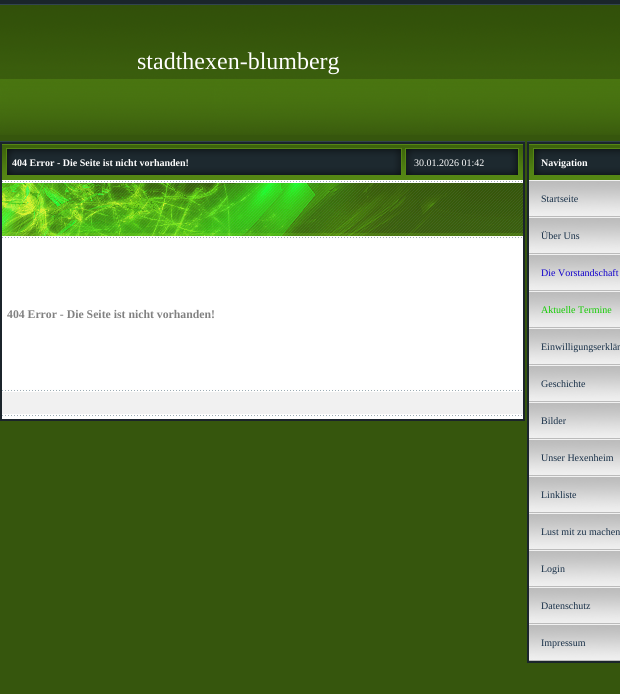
import math
import cairo

surface = cairo.ImageSurface(cairo.FORMAT_RGB24, 620, 694)
ctx = cairo.Context(surface)
options = cairo.FontOptions()
options.set_hint_metrics(cairo.HINT_METRICS_OFF)
options.set_hint_style(cairo.HINT_STYLE_NONE)
ctx.set_font_options(options)
ctx.set_miter_limit(4)


def set_color(code):
    ctx.set_source_rgb(*(v / 255 for v in bytes.fromhex(code[-6:])))


def draw_text(x, y, s, family, size, color, bold=False, italic=False):
    ctx.select_font_face(family, cairo.FONT_SLANT_ITALIC if italic else cairo.FONT_SLANT_NORMAL, cairo.FONT_WEIGHT_BOLD if bold else cairo.FONT_WEIGHT_NORMAL)
    ctx.set_font_size(size)
    set_color(color)
    ctx.move_to(x, y)
    ctx.show_text(s)


def fill_rect(x, y, w, h, color):
    set_color(color)
    ctx.rectangle(x, y, w, h)
    ctx.fill()


def draw_image(path, x, y, w, h):
    ctx.save()
    ctx.set_source_surface(cairo.ImageSurface.create_from_png(path), x, y)
    ctx.rectangle(x, y, w, h)
    ctx.fill()
    ctx.restore()


set_color("#36560d")
ctx.paint()
draw_image("assets/img1.png", 0, 0, 620, 135)
draw_text(137, 69, "stadthexen-blumberg", "Liberation Serif", 24, "#ffffff")
fill_rect(0, 141, 525, 1, "#31434d")
fill_rect(527, 141, 93, 1, "#31434d")
fill_rect(0, 142, 525, 279, "#1b242b")
draw_image("assets/img2.png", 2, 144, 521, 36)
draw_text(12, 166, "404 Error - Die Seite ist nicht vorhanden!", "Liberation Serif", 10, "#ffffff", bold=True)
draw_text(414, 166, "30.01.2026 01:42", "Liberation Serif", 10, "#ffffff")
draw_image("assets/img3.png", 2, 180, 521, 3)
draw_image("assets/img4.png", 2, 183, 521, 53)
draw_image("assets/img3.png", 2, 236, 521, 3)
fill_rect(2, 239, 521, 150, "#ffffff")
draw_text(7, 318, "404 Error - Die Seite ist nicht vorhanden!", "Liberation Serif", 11.75, "#818181", bold=True)
fill_rect(522, 389, 1, 3, "#ffffff")
draw_image("assets/img5.png", 2, 389, 520, 3)
fill_rect(2, 392, 521, 22, "#f1f1f1")
fill_rect(522, 414, 1, 3, "#ffffff")
draw_image("assets/img5.png", 2, 414, 520, 3)
fill_rect(2, 417, 521, 2, "#ffffff")
fill_rect(527, 142, 93, 521, "#1b262c")
draw_image("assets/img6.png", 529, 144, 91, 36)
draw_text(541, 166, "Navigation", "Liberation Serif", 10, "#ffffff", bold=True)
draw_image("assets/img7.png", 529, 180, 91, 37)
draw_text(541, 202, "Startseite", "Liberation Serif", 10, "#172f47")
draw_image("assets/img7.png", 529, 217, 91, 37)
draw_text(541, 239, "Über Uns", "Liberation Serif", 10, "#172f47")
draw_image("assets/img7.png", 529, 254, 91, 37)
draw_text(541, 276, "Die Vorstandschaft", "Liberation Serif", 10, "#1000cc")
draw_image("assets/img7.png", 529, 291, 91, 37)
draw_text(541, 313, "Aktuelle Termine", "Liberation Serif", 10, "#11cc00")
draw_image("assets/img7.png", 529, 328, 91, 37)
draw_text(541, 350, "Einwilligungserklär", "Liberation Serif", 10, "#172f47")
draw_image("assets/img7.png", 529, 365, 91, 37)
draw_text(541, 387, "Geschichte", "Liberation Serif", 10, "#172f47")
draw_image("assets/img7.png", 529, 402, 91, 37)
draw_text(541, 424, "Bilder", "Liberation Serif", 10, "#172f47")
draw_image("assets/img7.png", 529, 439, 91, 37)
draw_text(541, 461, "Unser Hexenheim", "Liberation Serif", 10, "#172f47")
draw_image("assets/img7.png", 529, 476, 91, 37)
draw_text(541, 498, "Linkliste", "Liberation Serif", 10, "#172f47")
draw_image("assets/img7.png", 529, 513, 91, 37)
draw_text(541, 535, "Lust mit zu machen", "Liberation Serif", 10, "#172f47")
draw_image("assets/img7.png", 529, 550, 91, 37)
draw_text(541, 572, "Login", "Liberation Serif", 10, "#172f47")
draw_image("assets/img7.png", 529, 587, 91, 37)
draw_text(541, 609, "Datenschutz", "Liberation Serif", 10, "#172f47")
draw_image("assets/img7.png", 529, 624, 91, 37)
draw_text(541, 646, "Impressum", "Liberation Serif", 10, "#172f47")
surface.write_to_png("output.png")
